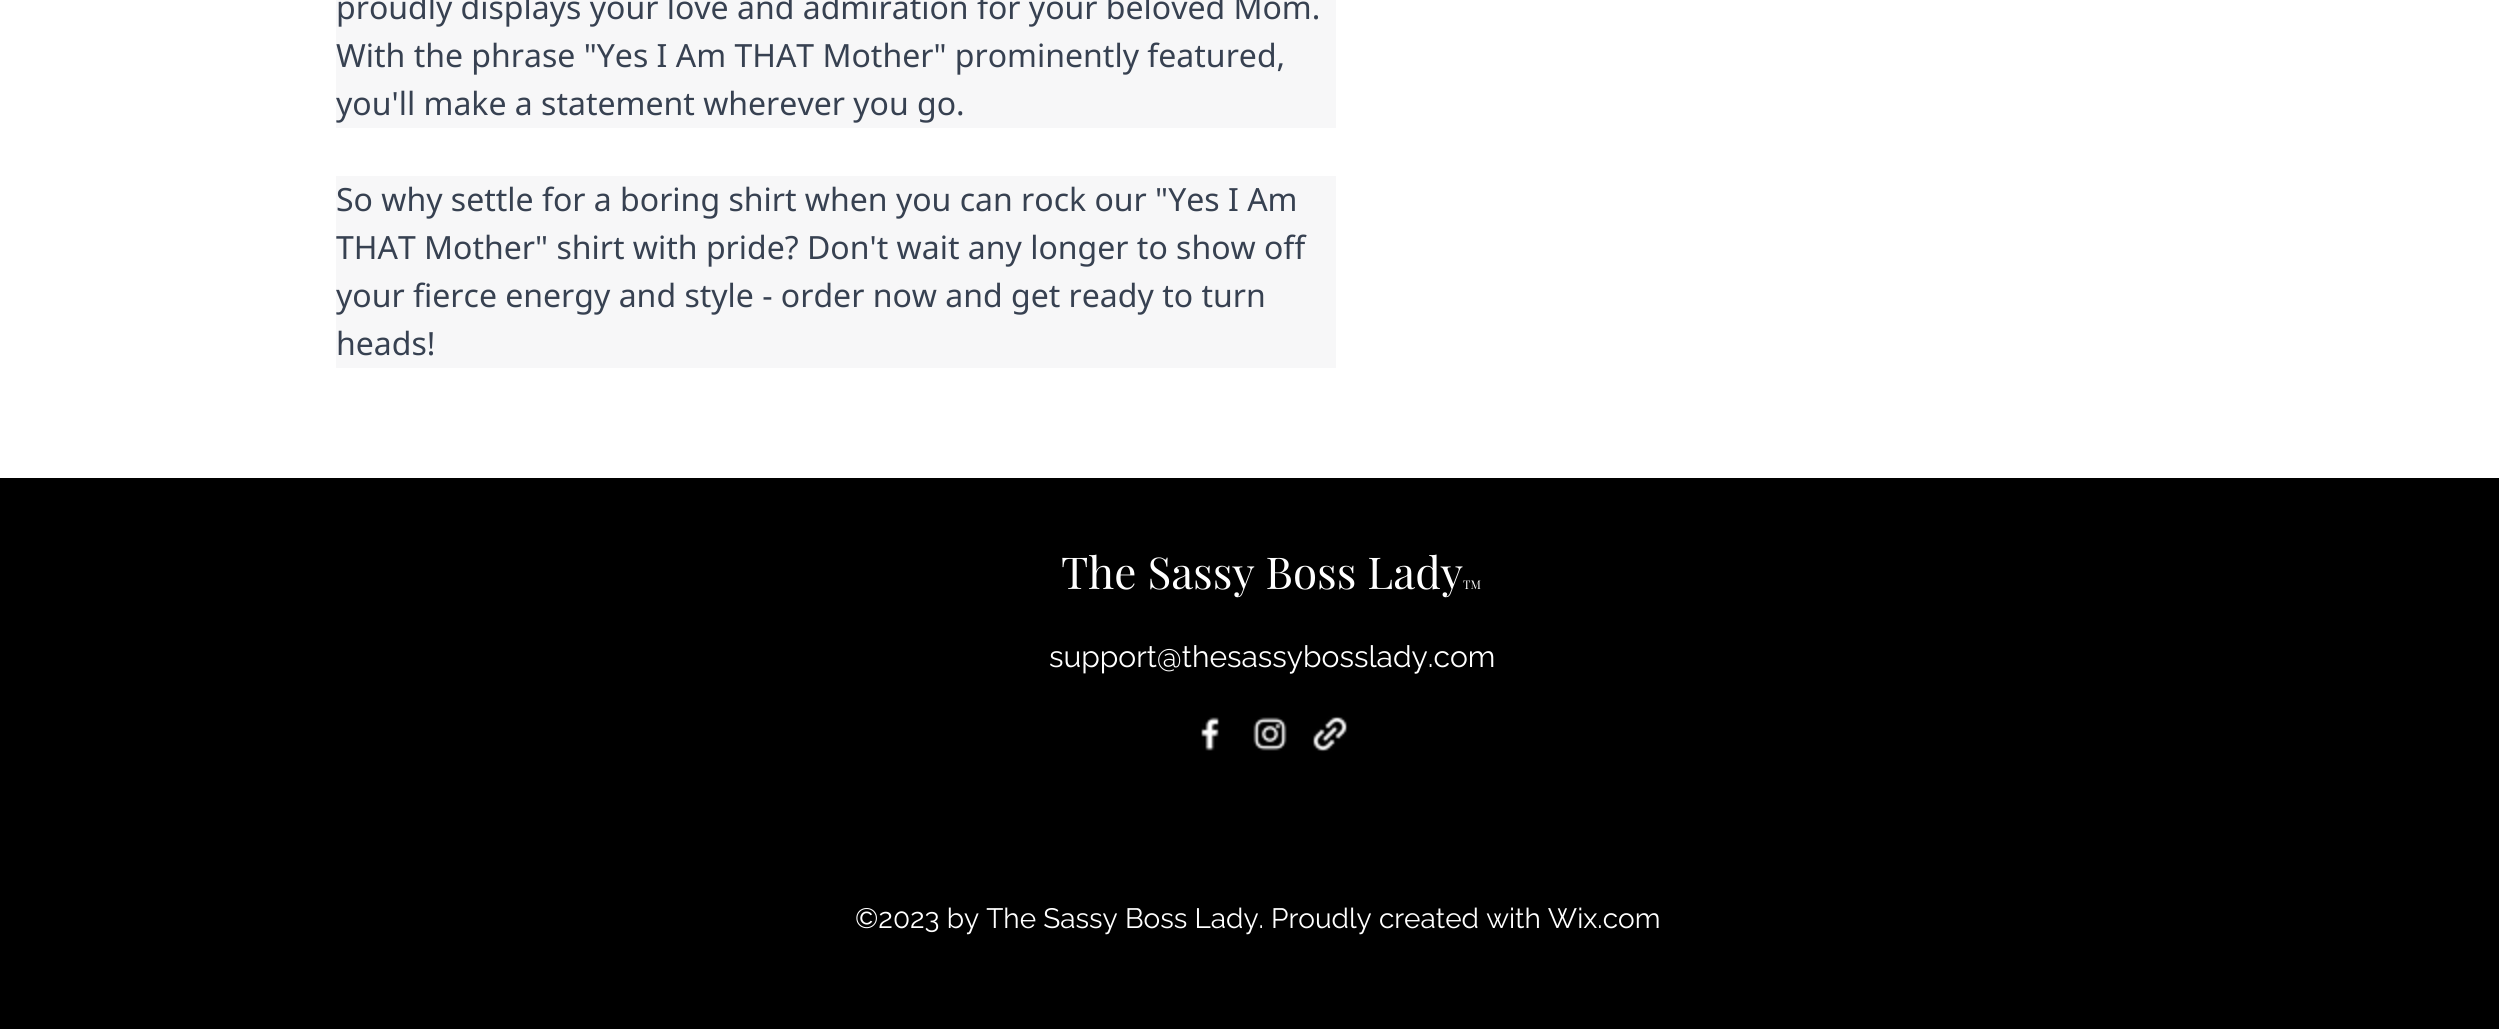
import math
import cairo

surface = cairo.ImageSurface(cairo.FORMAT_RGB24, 2499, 1029)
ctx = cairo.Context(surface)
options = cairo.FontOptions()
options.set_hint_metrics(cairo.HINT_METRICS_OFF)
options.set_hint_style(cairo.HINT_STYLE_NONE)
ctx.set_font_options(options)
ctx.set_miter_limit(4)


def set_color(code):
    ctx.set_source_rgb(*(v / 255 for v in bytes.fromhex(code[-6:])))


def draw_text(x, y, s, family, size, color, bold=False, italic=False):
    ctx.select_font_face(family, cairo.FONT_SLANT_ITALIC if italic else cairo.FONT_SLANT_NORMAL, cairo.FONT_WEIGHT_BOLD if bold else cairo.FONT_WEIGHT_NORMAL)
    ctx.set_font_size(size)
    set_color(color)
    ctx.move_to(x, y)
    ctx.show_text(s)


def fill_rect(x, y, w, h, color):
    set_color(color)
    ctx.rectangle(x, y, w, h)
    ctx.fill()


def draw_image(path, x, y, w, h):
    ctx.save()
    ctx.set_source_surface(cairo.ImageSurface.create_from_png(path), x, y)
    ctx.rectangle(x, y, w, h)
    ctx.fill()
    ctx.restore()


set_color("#ffffff")
ctx.paint()
fill_rect(336, 0, 1000, 128, "#f7f7f8")
draw_text(336, 19, "proudly displays your love and admiration for your beloved Mom.", "Noto Sans", 32, "#374151")
draw_text(336, 67, "With the phrase \"Yes I Am THAT Mother\" prominently featured,", "Noto Sans", 32, "#374151")
draw_text(336, 115, "you'll make a statement wherever you go.", "Noto Sans", 32, "#374151")
fill_rect(336, 176, 1000, 192, "#f7f7f8")
draw_text(336, 211, "So why settle for a boring shirt when you can rock our \"Yes I Am", "Noto Sans", 32, "#374151")
draw_text(336, 259, "THAT Mother\" shirt with pride? Don't wait any longer to show off", "Noto Sans", 32, "#374151")
draw_text(336, 307, "your fierce energy and style - order now and get ready to turn", "Noto Sans", 32, "#374151")
draw_text(336, 355, "heads!", "Noto Sans", 32, "#374151")
fill_rect(0, 478, 2499, 551, "#000000")
draw_text(1061, 589, "The Sassy Boss Lady", "Playfair Display", 44, "#ffffff")
draw_text(1463, 589, "TM", "Playfair Display", 12, "#ffffff")
draw_text(1049, 667, "support@thesassybosslady.com", "Raleway", 30, "#ffffff")
draw_image("assets/img1.png", 1201, 717, 19, 34)
draw_image("assets/img2.png", 1253, 717, 34, 34)
draw_image("assets/img3.png", 1312, 716, 36, 36)
draw_text(855, 928, "©2023 by The Sassy Boss Lady. Proudly created with Wix.com", "Raleway", 28, "#ffffff")
surface.write_to_png("output.png")
